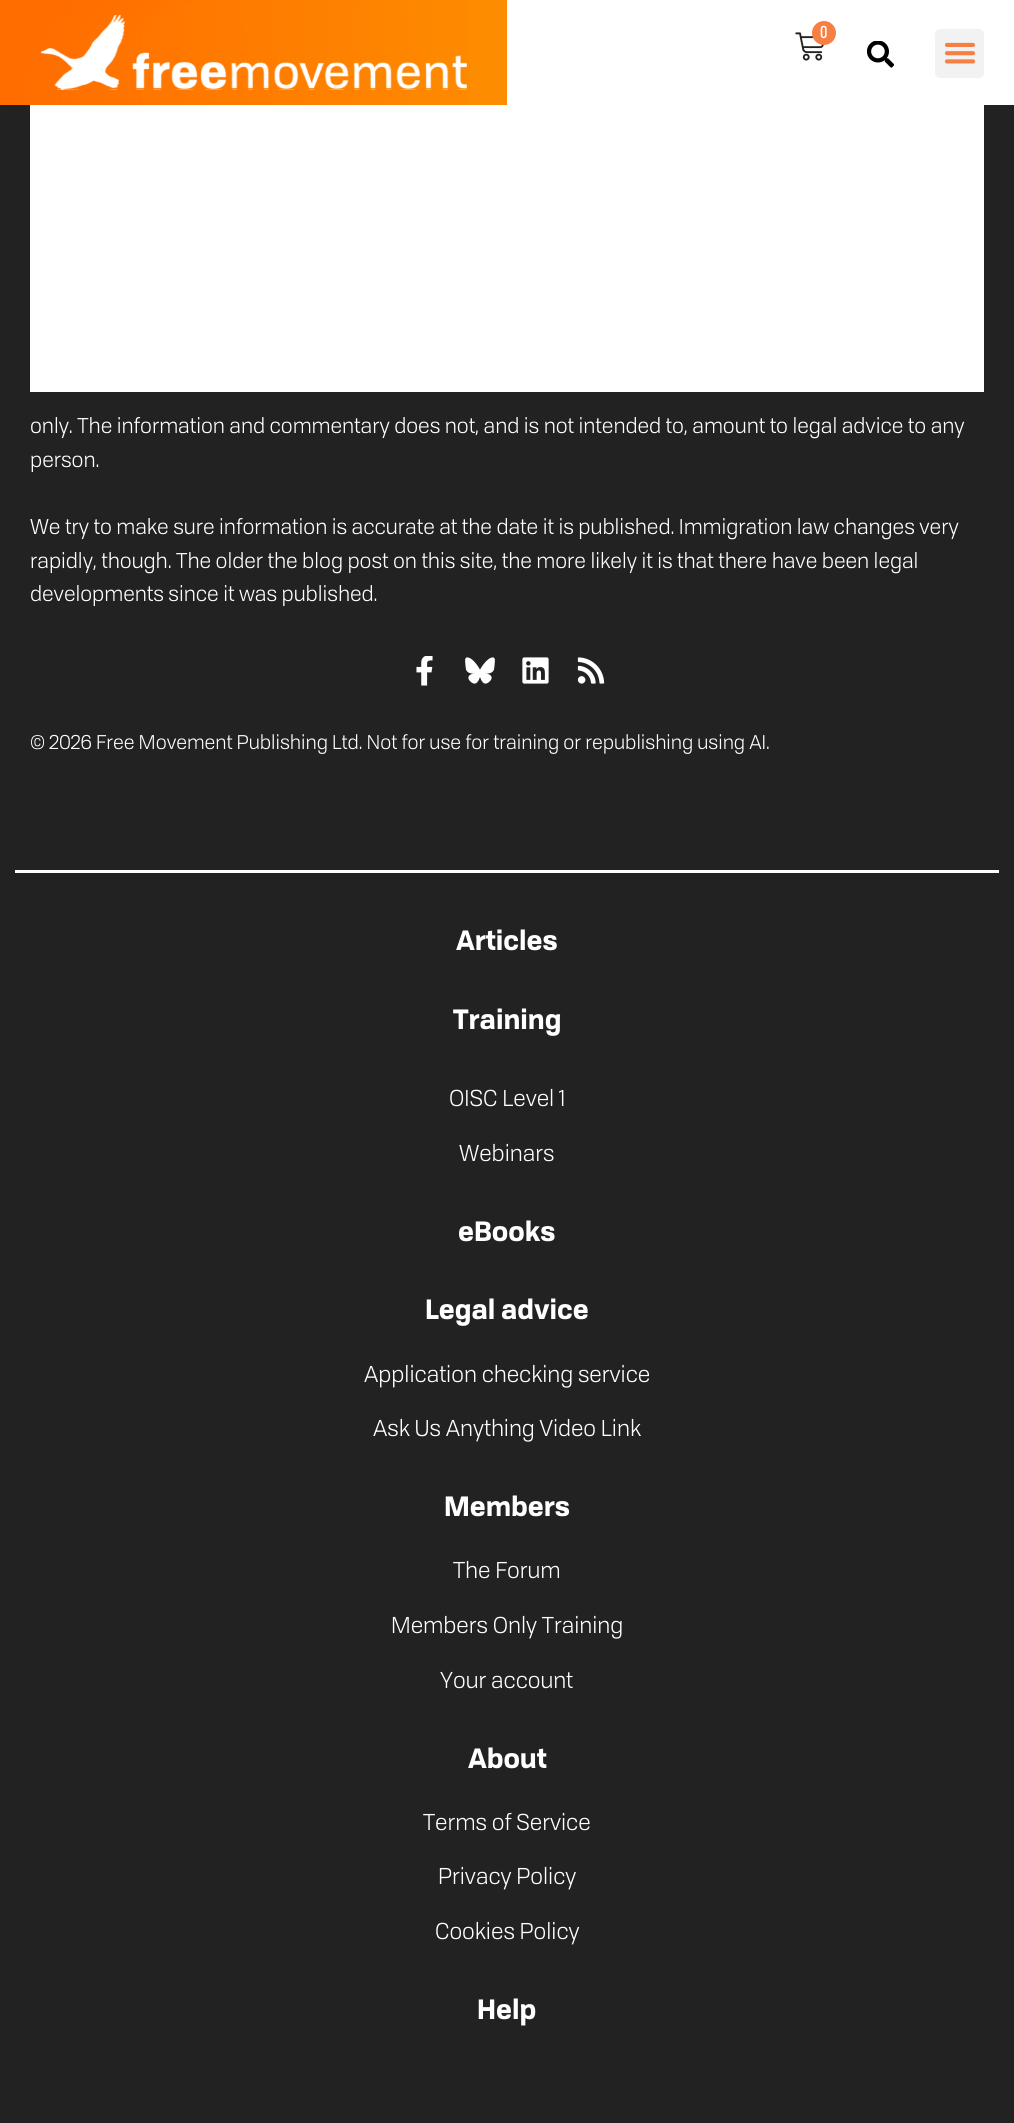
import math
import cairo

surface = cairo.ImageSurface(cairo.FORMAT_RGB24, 1014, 2123)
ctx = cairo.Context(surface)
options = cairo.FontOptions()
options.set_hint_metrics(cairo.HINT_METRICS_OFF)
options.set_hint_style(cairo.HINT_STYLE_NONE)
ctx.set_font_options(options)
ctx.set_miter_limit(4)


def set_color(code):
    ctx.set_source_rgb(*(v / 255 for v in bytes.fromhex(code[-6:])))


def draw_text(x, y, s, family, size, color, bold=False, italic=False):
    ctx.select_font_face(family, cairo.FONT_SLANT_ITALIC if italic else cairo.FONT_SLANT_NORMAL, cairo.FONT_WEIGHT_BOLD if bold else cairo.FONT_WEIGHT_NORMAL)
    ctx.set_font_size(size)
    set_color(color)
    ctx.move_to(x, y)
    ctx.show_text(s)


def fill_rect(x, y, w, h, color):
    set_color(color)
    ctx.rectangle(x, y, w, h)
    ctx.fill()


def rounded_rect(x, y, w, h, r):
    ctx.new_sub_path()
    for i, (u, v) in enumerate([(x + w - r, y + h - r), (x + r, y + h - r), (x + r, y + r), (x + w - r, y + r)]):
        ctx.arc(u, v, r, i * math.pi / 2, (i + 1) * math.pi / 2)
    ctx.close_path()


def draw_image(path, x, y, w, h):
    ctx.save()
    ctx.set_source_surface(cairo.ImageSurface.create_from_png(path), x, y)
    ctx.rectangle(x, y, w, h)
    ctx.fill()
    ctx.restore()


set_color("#222222")
ctx.paint()
fill_rect(507, 0, 507, 105, "#ffffff")
gradient = cairo.LinearGradient(184, -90, 323, 195)
gradient.add_color_stop_rgba(0, 1, 0.4, 0, 1)
gradient.add_color_stop_rgba(0.28, 0.996, 0.549, 0, 1)
ctx.set_source(gradient)
ctx.rectangle(3, 0, 504, 105)
ctx.fill()
gradient = cairo.LinearGradient(507, 52, 0, 53)
gradient.add_color_stop_rgba(0, 1, 0.424, 0, 0)
gradient.add_color_stop_rgba(1, 1, 0.424, 0, 1)
ctx.set_source(gradient)
ctx.rectangle(0, 0, 468, 105)
ctx.fill()
draw_image("assets/img1.png", 41, 15, 426, 75)
draw_image("assets/img2.png", 795, 32, 29, 29)
set_color("#f68044")
ctx.arc(824, 33, 12, 0, 2 * math.pi)
ctx.fill()
draw_text(820, 38, "0", "Oswald", 15, "#ffffff")
draw_image("assets/img3.png", 867, 41, 27, 27)
set_color("#f2f2f2")
rounded_rect(935, 29, 49, 49, 5)
ctx.fill()
draw_image("assets/img4.png", 944, 42, 32, 22)
fill_rect(30, 105, 954, 287, "#ffffff")
draw_text(30, 433, "only. The information and commentary does not, and is not intended to, amount to legal advice to any", "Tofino", 21, "#ffffff")
draw_text(30, 467, "person.", "Tofino", 21, "#ffffff")
draw_text(30, 534, "We try to make sure information is accurate at the date it is published. Immigration law changes very", "Tofino", 21, "#ffffff")
draw_text(30, 568, "rapidly, though. The older the blog post on this site, the more likely it is that there have been legal", "Tofino", 21, "#ffffff")
draw_text(30, 601, "developments since it was published.", "Tofino", 21, "#ffffff")
draw_image("assets/img5.png", 416, 656, 17, 30)
draw_image("assets/img6.png", 465, 657, 30, 27)
draw_image("assets/img7.png", 522, 657, 27, 27)
draw_image("assets/img8.png", 577, 657, 28, 27)
draw_text(30, 749, "© 2026 Free Movement Publishing Ltd. Not for use for training or republishing using AI.", "Tofino", 19.5, "#ffffff")
fill_rect(15, 870, 984, 3, "#ffffff")
draw_text(456, 950, "Articles", "Tofino", 27, "#ffffff", bold=True)
draw_text(453, 1029, "Training", "Tofino", 27, "#ffffff", bold=True)
draw_text(449, 1106, "OISC Level 1", "Tofino", 22.5, "#ffffff")
draw_text(459, 1161, "Webinars", "Tofino", 22.5, "#ffffff")
draw_text(458, 1241, "eBooks", "Tofino", 27, "#ffffff", bold=True)
draw_text(425, 1319, "Legal advice", "Tofino", 27, "#ffffff", bold=True)
draw_text(364, 1382, "Application checking service", "Tofino", 22.5, "#ffffff")
draw_text(373, 1436, "Ask Us Anything Video Link", "Tofino", 22.5, "#ffffff")
draw_text(444, 1516, "Members", "Tofino", 27, "#ffffff", bold=True)
draw_text(453, 1578, "The Forum", "Tofino", 22.5, "#ffffff")
draw_text(391, 1633, "Members Only Training", "Tofino", 22.5, "#ffffff")
draw_text(440, 1688, "Your account", "Tofino", 22.5, "#ffffff")
draw_text(468, 1768, "About", "Tofino", 27, "#ffffff", bold=True)
draw_text(423, 1830, "Terms of Service", "Tofino", 22.5, "#ffffff")
draw_text(438, 1884, "Privacy Policy", "Tofino", 22.5, "#ffffff")
draw_text(435, 1939, "Cookies Policy", "Tofino", 22.5, "#ffffff")
draw_text(477, 2019, "Help", "Tofino", 27, "#ffffff", bold=True)
surface.write_to_png("output.png")
